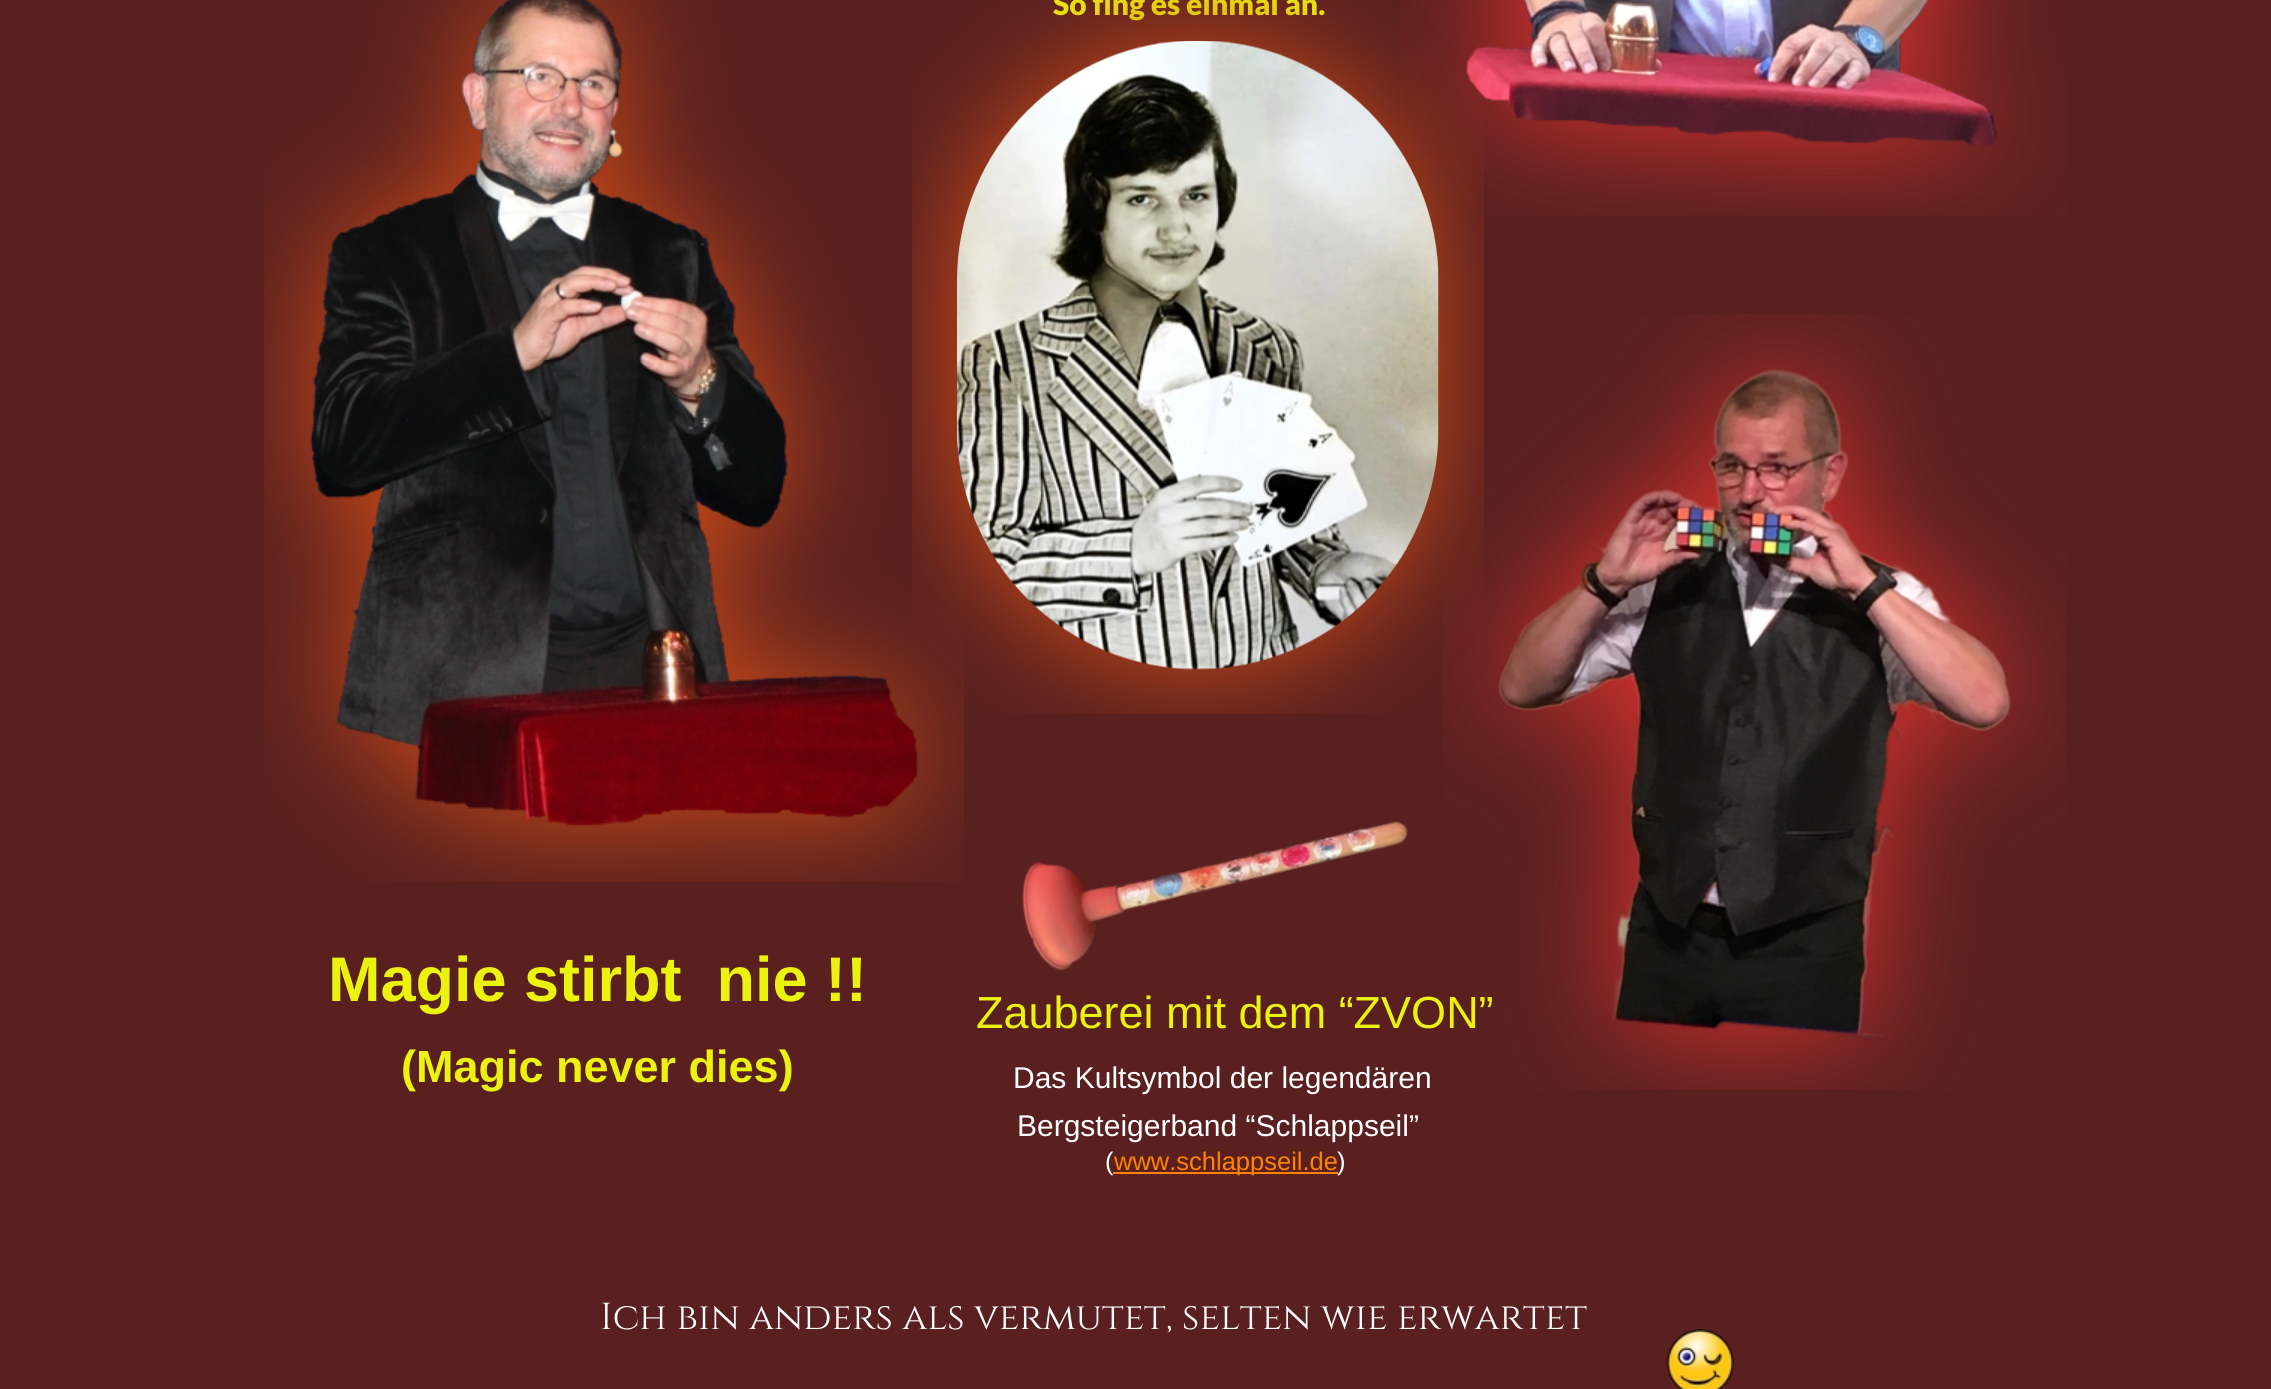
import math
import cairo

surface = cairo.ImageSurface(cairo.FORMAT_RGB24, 2271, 1389)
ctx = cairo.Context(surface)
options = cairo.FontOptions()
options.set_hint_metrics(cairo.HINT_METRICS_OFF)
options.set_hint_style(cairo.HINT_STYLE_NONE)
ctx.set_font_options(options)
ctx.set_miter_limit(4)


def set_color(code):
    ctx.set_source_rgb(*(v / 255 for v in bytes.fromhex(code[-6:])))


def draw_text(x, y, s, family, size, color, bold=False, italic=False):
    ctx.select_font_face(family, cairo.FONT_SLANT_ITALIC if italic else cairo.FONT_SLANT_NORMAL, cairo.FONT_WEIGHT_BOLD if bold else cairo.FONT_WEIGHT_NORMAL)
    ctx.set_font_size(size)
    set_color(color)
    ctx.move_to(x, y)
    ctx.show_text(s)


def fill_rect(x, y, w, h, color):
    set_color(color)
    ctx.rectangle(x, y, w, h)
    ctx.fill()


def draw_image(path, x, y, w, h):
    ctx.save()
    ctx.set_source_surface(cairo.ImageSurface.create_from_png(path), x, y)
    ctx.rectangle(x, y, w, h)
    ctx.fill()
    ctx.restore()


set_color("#5a2020")
ctx.paint()
draw_image("assets/img1.png", 264, 0, 700, 882)
draw_text(328, 1001, "Magie stirbt  nie !!", "Liberation Sans", 63, "#eaf20e", bold=True)
draw_text(401, 1082, "(Magic never dies)", "Liberation Sans", 45, "#eaf20e", bold=True)
draw_text(1053, 15, "So fing es einmal an.", "Lato Black", 30, "#eaf20e")
draw_image("assets/img4.png", 1400, 0, 667, 216)
draw_image("assets/img5.png", 1443, 314, 624, 776)
draw_image("assets/img2.png", 912, 0, 572, 714)
draw_image("assets/img3.png", 1022, 821, 386, 150)
draw_text(976, 1028, "Zauberei mit dem “ZVON”", "Liberation Sans", 45, "#eaf20e")
draw_text(1013, 1088, "Das Kultsymbol der legendären", "Liberation Sans", 30, "#ffffff")
draw_text(1017, 1136, "Bergsteigerband “Schlappseil”", "Liberation Sans", 30, "#ffffff")
draw_text(1105, 1170, "(", "Liberation Sans", 25.5, "#ffffff")
fill_rect(1113, 1172, 225, 2, "#ff8200")
draw_text(1114, 1170, "www.schlappseil.de", "Liberation Sans", 25.5, "#ff8200")
draw_text(1337, 1170, ")", "Liberation Sans", 25.5, "#ffffff")
draw_text(600, 1329, "Ich bin anders als vermutet, selten wie erwartet", "Cinzel", 37.5, "#ffffff")
draw_image("assets/img6.png", 1666, 1329, 68, 60)
surface.write_to_png("output.png")
